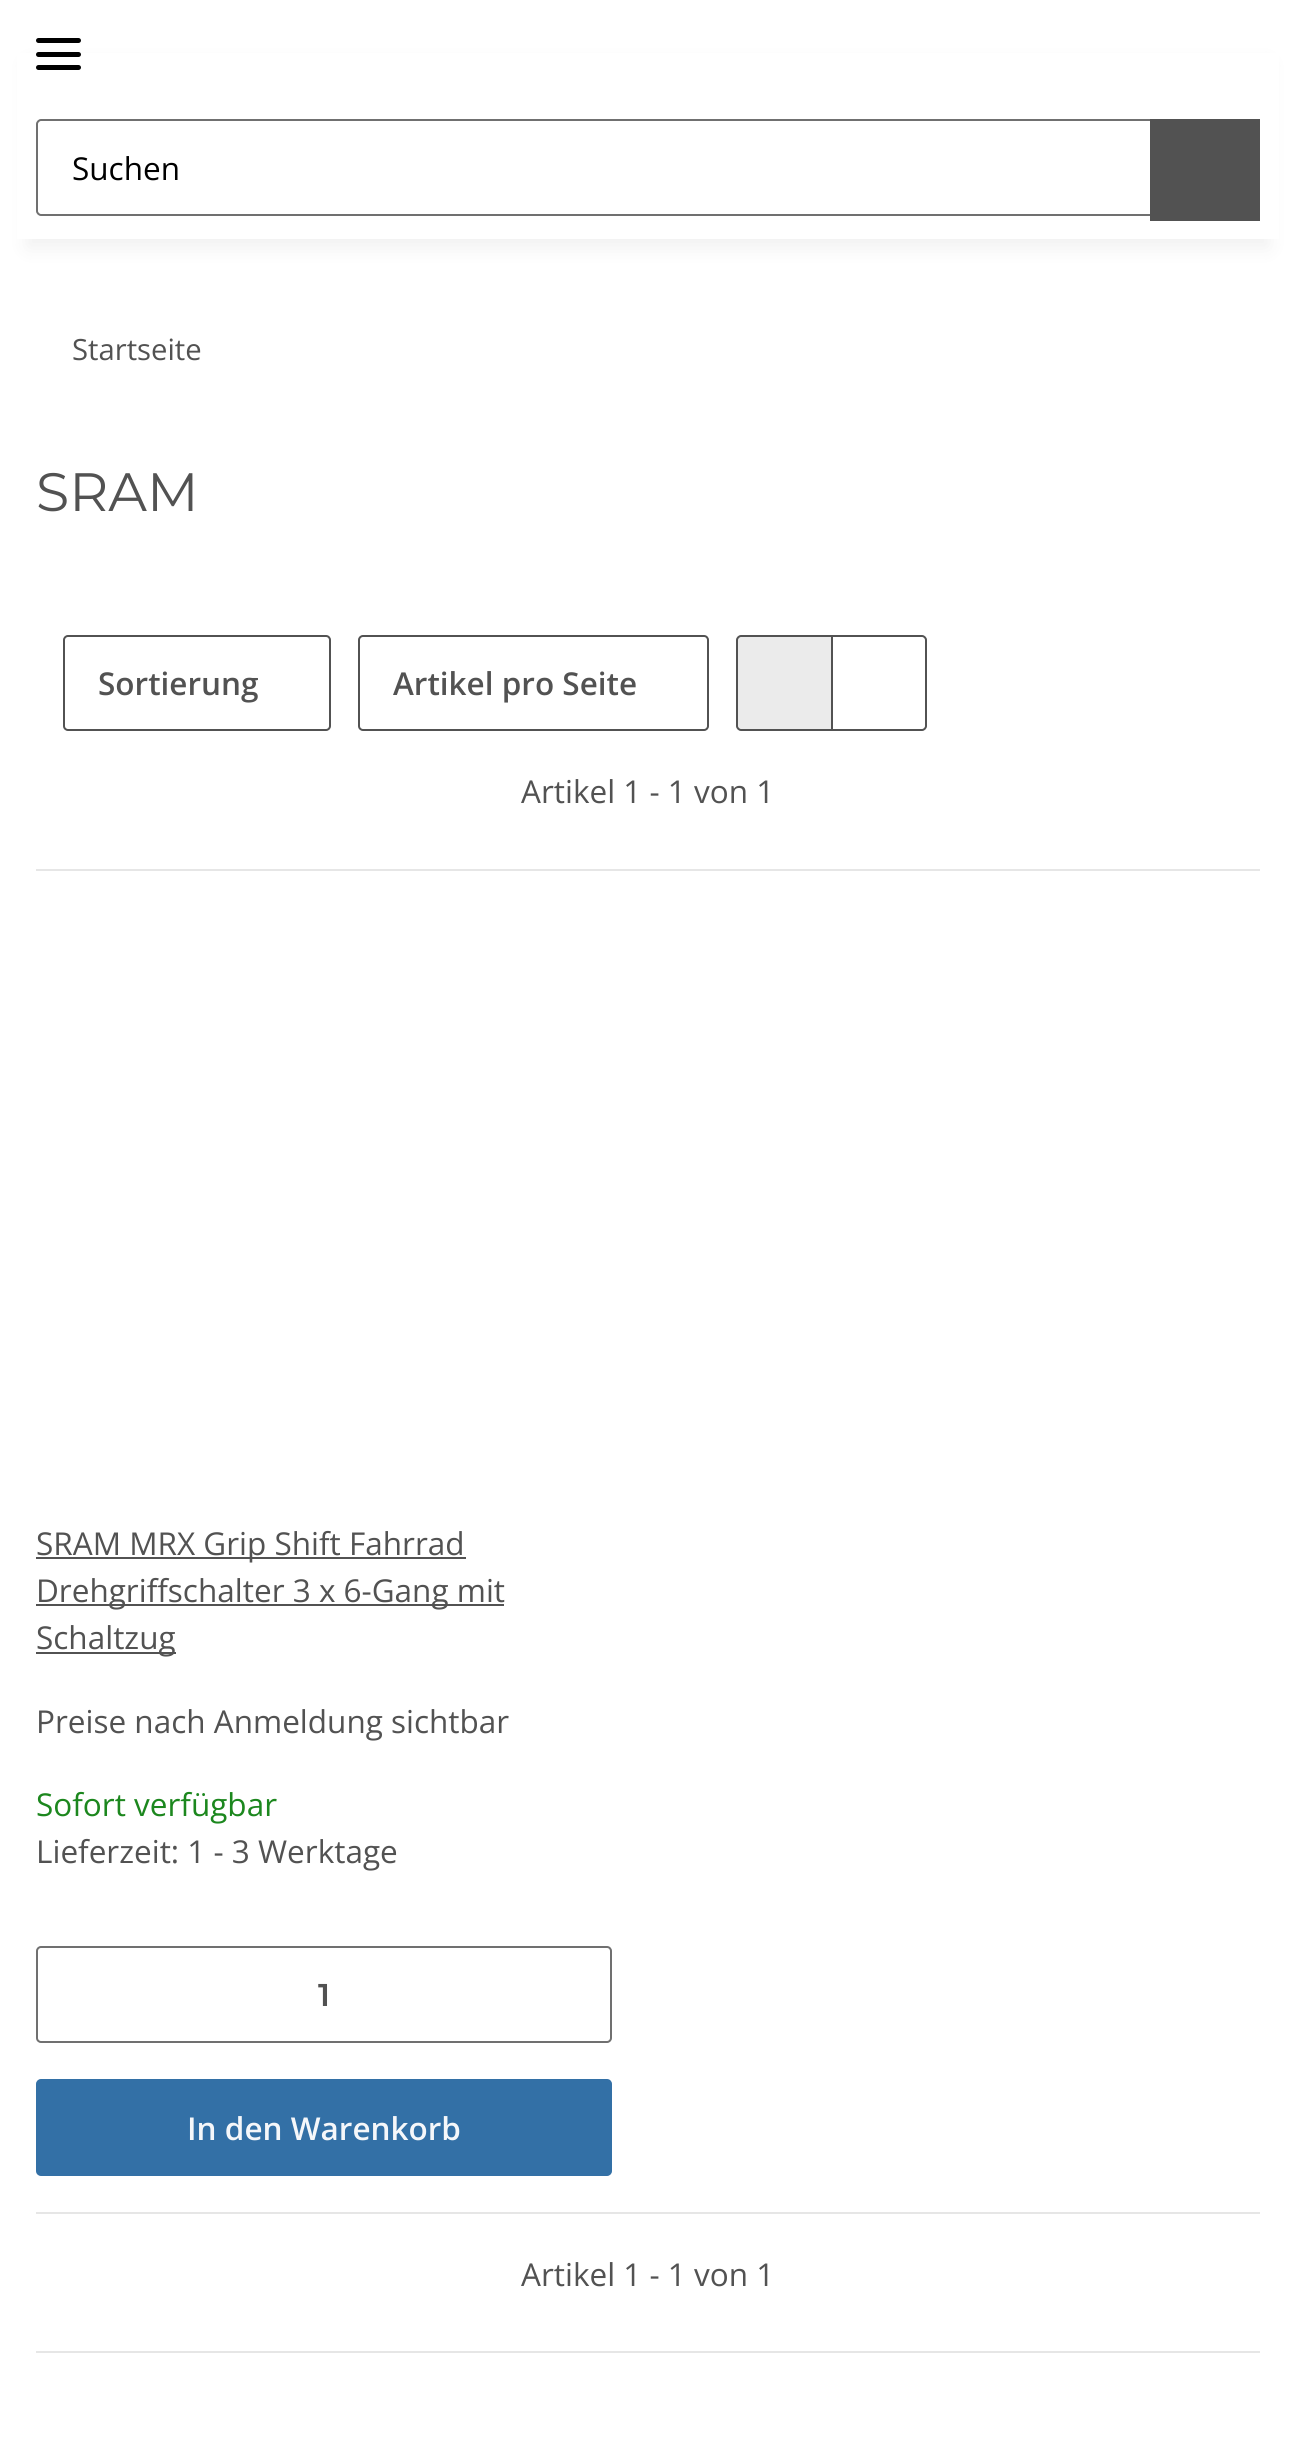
import math
import cairo

surface = cairo.ImageSurface(cairo.FORMAT_RGB24, 1296, 2446)
ctx = cairo.Context(surface)
options = cairo.FontOptions()
options.set_hint_metrics(cairo.HINT_METRICS_OFF)
options.set_hint_style(cairo.HINT_STYLE_NONE)
ctx.set_font_options(options)
ctx.set_miter_limit(4)


def set_color(code):
    ctx.set_source_rgb(*(v / 255 for v in bytes.fromhex(code[-6:])))


def draw_text(x, y, s, family, size, color, bold=False, italic=False):
    ctx.select_font_face(family, cairo.FONT_SLANT_ITALIC if italic else cairo.FONT_SLANT_NORMAL, cairo.FONT_WEIGHT_BOLD if bold else cairo.FONT_WEIGHT_NORMAL)
    ctx.set_font_size(size)
    set_color(color)
    ctx.move_to(x, y)
    ctx.show_text(s)


def fill_rect(x, y, w, h, color):
    set_color(color)
    ctx.rectangle(x, y, w, h)
    ctx.fill()


def rounded_rect(x, y, w, h, r):
    ctx.new_sub_path()
    for i, (u, v) in enumerate([(x + w - r, y + h - r), (x + r, y + h - r), (x + r, y + r), (x + w - r, y + r)]):
        ctx.arc(u, v, r, i * math.pi / 2, (i + 1) * math.pi / 2)
    ctx.close_path()


def draw_shadow(x, y, w, h, r, blur, alpha):
    ctx.push_group_with_content(cairo.CONTENT_ALPHA)
    ctx.set_operator(cairo.OPERATOR_SOURCE)
    for i in range(15, -16, -2):
        e = blur * i / 6
        if min(w, h) + 2 * e > 0:
            ctx.set_source_rgba(0, 0, 0, alpha * math.erfc((i - 1) / 8.5) / 2)
            rounded_rect(x - e, y - e, w + 2 * e, h + 2 * e, max(0, min(r + e + blur * .6, min(w, h) / 2 + e)))
            ctx.fill()
    ctx.mask(ctx.pop_group())


set_color("#ffffff")
ctx.paint()
set_color("#000000")
draw_shadow(27, 63, 1242, 185, 0, 10, 0.06)
fill_rect(17, 53, 1262, 186, "#ffffff")
set_color("#000000")
rounded_rect(36, 52, 45, 5, 2.5)
ctx.fill()
rounded_rect(36, 38, 45, 5, 2.5)
ctx.fill()
rounded_rect(36, 65, 45, 5, 2.5)
ctx.fill()
ctx.new_path()
ctx.move_to(41, 120)
ctx.line_to(1151, 120)
ctx.line_to(1151, 215)
ctx.line_to(41, 215)
ctx.curve_to(39, 215, 37, 213, 37, 211)
ctx.line_to(37, 124)
ctx.curve_to(37, 122, 39, 120, 41, 120)
ctx.close_path()
set_color("#707070")
ctx.stroke()
draw_text(72, 180, "Suchen", "Open Sans", 31.5, "#000000")
fill_rect(1150, 119, 110, 102, "#525252")
draw_text(72, 360, "Startseite", "Open Sans", 29.25, "#525252")
draw_text(36, 511, "SRAM", "Montserrat", 54, "#525252")
rounded_rect(64, 636, 266, 94, 4)
ctx.stroke()
draw_text(98, 695, "Sortierung", "Open Sans SemiBold", 31.5, "#525252")
rounded_rect(359, 636, 349, 94, 4)
ctx.stroke()
draw_text(393, 695, "Artikel pro Seite", "Open Sans SemiBold", 31.5, "#525252")
ctx.new_path()
ctx.move_to(831, 636)
ctx.line_to(922, 636)
ctx.curve_to(924, 636, 926, 638, 926, 640)
ctx.line_to(926, 726)
ctx.curve_to(926, 728, 924, 730, 922, 730)
ctx.line_to(831, 730)
ctx.close_path()
ctx.stroke()
set_color("#ebebeb")
ctx.new_path()
ctx.move_to(741, 636)
ctx.line_to(832, 636)
ctx.line_to(832, 730)
ctx.line_to(741, 730)
ctx.curve_to(739, 730, 737, 728, 737, 726)
ctx.line_to(737, 640)
ctx.curve_to(737, 638, 739, 636, 741, 636)
ctx.close_path()
ctx.fill_preserve()
set_color("#525252")
ctx.stroke()
draw_text(521, 803, "Artikel 1 - 1 von 1", "Open Sans", 31.5, "#525252")
fill_rect(36, 869, 1224, 2, "#e6e6e6")
fill_rect(36, 1557, 430, 2, "#525252")
draw_text(36, 1555, "SRAM MRX Grip Shift Fahrrad", "Open Sans", 31.5, "#525252")
fill_rect(36, 1604, 468, 2, "#525252")
draw_text(36, 1602, "Drehgriffschalter 3 x 6-Gang mit", "Open Sans", 31.5, "#525252")
fill_rect(36, 1652, 140, 2, "#525252")
draw_text(36, 1649, "Schaltzug", "Open Sans", 31.5, "#525252")
draw_text(36, 1733, "Preise nach Anmeldung sichtbar", "Open Sans", 31.5, "#525252")
draw_text(36, 1816, "Sofort verfügbar", "Open Sans", 31.5, "#1c871e")
draw_text(36, 1863, "Lieferzeit: 1 - 3 Werktage", "Open Sans", 31.5, "#525252")
rounded_rect(37, 1947, 574, 95, 4)
set_color("#707070")
ctx.stroke()
draw_text(318, 2006, "1", "Montserrat SemiBold", 31.5, "#525252")
set_color("#3370a6")
rounded_rect(37, 2080, 574, 95, 4)
ctx.fill_preserve()
ctx.stroke()
draw_text(187, 2140, "In den Warenkorb", "Open Sans SemiBold", 31.5, "#f5f7fa")
fill_rect(36, 2212, 1224, 2, "#e6e6e6")
draw_text(521, 2286, "Artikel 1 - 1 von 1", "Open Sans", 31.5, "#525252")
fill_rect(36, 2351, 1224, 2, "#e6e6e6")
surface.write_to_png("output.png")
